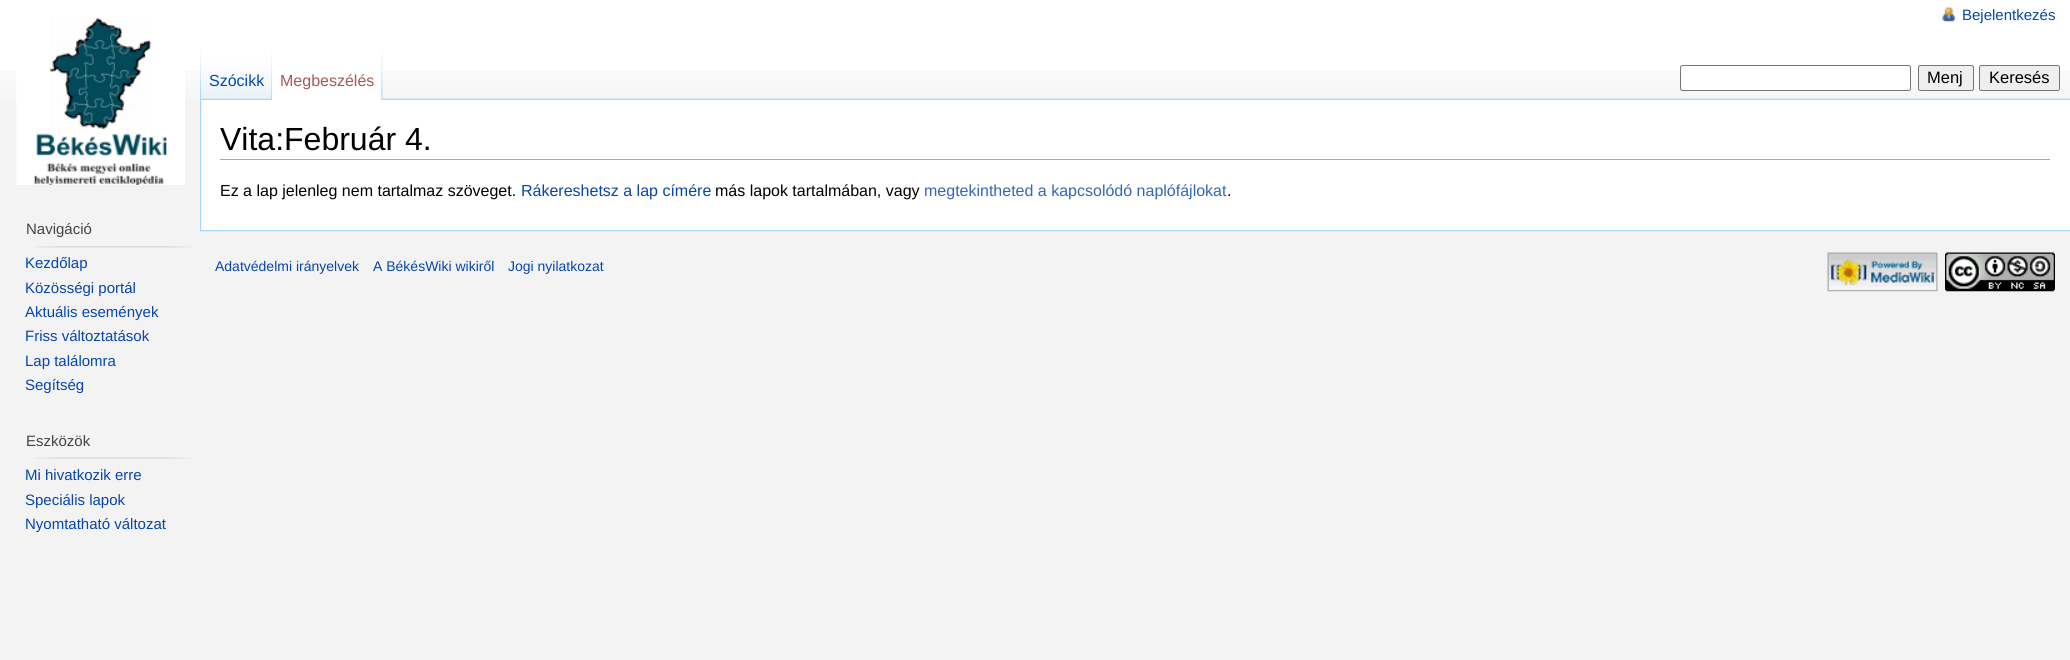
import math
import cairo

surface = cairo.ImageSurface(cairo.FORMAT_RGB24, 2070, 660)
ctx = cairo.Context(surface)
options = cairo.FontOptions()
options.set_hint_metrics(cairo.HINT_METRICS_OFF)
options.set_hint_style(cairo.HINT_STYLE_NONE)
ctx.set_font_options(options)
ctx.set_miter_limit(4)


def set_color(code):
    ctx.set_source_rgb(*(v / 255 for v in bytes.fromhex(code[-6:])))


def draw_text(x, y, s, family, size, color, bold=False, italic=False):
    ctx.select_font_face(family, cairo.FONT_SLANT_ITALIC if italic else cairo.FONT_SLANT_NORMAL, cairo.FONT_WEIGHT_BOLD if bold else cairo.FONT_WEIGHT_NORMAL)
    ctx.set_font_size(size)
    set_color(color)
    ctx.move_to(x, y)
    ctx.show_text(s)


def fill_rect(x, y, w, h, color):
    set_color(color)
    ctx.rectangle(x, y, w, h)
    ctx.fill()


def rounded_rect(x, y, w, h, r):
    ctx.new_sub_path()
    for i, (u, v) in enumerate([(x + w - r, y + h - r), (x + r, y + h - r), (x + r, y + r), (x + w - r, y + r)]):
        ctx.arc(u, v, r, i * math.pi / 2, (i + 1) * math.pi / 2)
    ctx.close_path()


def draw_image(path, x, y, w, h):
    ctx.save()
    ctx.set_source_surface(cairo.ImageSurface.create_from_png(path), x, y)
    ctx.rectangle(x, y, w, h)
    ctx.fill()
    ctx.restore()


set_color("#f3f3f3")
ctx.paint()
fill_rect(0, 0, 2070, 71, "#ffffff")
draw_image("assets/img1.png", 0, 71, 2070, 29)
draw_image("assets/img2.png", 1942, 7, 13, 15)
draw_text(1962, 20, "Bejelentkezés", "Liberation Sans", 15, "#0645ad")
draw_image("assets/img7.png", 200, 98, 1870, 2)
draw_image("assets/img3.png", 200, 50, 2, 49)
draw_image("assets/img4.png", 201, 50, 71, 50)
draw_image("assets/img5.png", 271, 52, 1, 48)
draw_text(209, 86, "Szócikk", "Liberation Sans", 16, "#0645ad")
fill_rect(272, 71, 111, 29, "#ffffff")
draw_image("assets/img6.png", 381, 52, 2, 48)
draw_text(280, 86, "Megbeszélés", "Liberation Sans", 16, "#a55858")
set_color("#ffffff")
rounded_rect(1680.5, 65.5, 230, 25, 2)
ctx.fill_preserve()
set_color("#767676")
ctx.set_line_width(1)
ctx.stroke()
set_color("#efefef")
rounded_rect(1918.5, 65.5, 55, 25, 2)
ctx.fill_preserve()
set_color("#767676")
ctx.stroke()
draw_text(1927, 83, "Menj", "Liberation Sans", 16.5, "#000000")
set_color("#efefef")
rounded_rect(1979.5, 65.5, 80, 25, 2)
ctx.fill_preserve()
set_color("#767676")
ctx.stroke()
draw_text(1989, 83, "Keresés", "Liberation Sans", 16.5, "#000000")
fill_rect(201, 100, 1869, 130, "#ffffff")
draw_image("assets/img8.png", 200, 100, 2, 130)
fill_rect(220, 159, 1830, 1, "#aaaaaa")
draw_text(220, 150, "Vita:Február 4.", "Liberation Sans", 32, "#000000")
draw_text(220, 196, "Ez a lap jelenleg nem tartalmaz szöveget.", "Liberation Sans", 16, "#000000")
draw_text(521, 196, "Rákereshetsz a lap címére", "Liberation Sans", 16, "#0645ad")
draw_text(715, 196, "más lapok tartalmában, vagy", "Liberation Sans", 16, "#000000")
draw_text(924, 196, "megtekintheted a kapcsolódó naplófájlokat", "Liberation Sans", 16, "#3366bb")
draw_text(1227, 196, ".", "Liberation Sans", 16, "#000000")
draw_image("assets/img9.png", 16, 17, 169, 168)
draw_text(26, 234, "Navigáció", "Liberation Sans", 15, "#444444")
draw_image("assets/img10.png", 34, 246, 158, 2)
draw_text(25, 268, "Kezdőlap", "Liberation Sans", 15, "#0645ad")
draw_text(25, 293, "Közösségi portál", "Liberation Sans", 15, "#0645ad")
draw_text(25, 317, "Aktuális események", "Liberation Sans", 15, "#0645ad")
draw_text(25, 341, "Friss változtatások", "Liberation Sans", 15, "#0645ad")
draw_text(25, 366, "Lap találomra", "Liberation Sans", 15, "#0645ad")
draw_text(25, 390, "Segítség", "Liberation Sans", 15, "#0645ad")
draw_text(26, 446, "Eszközök", "Liberation Sans", 15, "#444444")
draw_image("assets/img11.png", 34, 457, 158, 2)
draw_text(25, 480, "Mi hivatkozik erre", "Liberation Sans", 15, "#0645ad")
draw_text(25, 505, "Speciális lapok", "Liberation Sans", 15, "#0645ad")
draw_text(25, 529, "Nyomtatható változat", "Liberation Sans", 15, "#0645ad")
draw_image("assets/img12.png", 200, 230, 1870, 2)
draw_text(215, 271, "Adatvédelmi irányelvek", "Liberation Sans", 14, "#0645ad")
draw_text(373, 271, "A BékésWiki wikiről", "Liberation Sans", 14, "#0645ad")
draw_text(508, 271, "Jogi nyilatkozat", "Liberation Sans", 14, "#0645ad")
draw_image("assets/img13.png", 1827, 252, 111, 40)
draw_image("assets/img14.png", 1945, 252, 110, 40)
surface.write_to_png("output.png")
